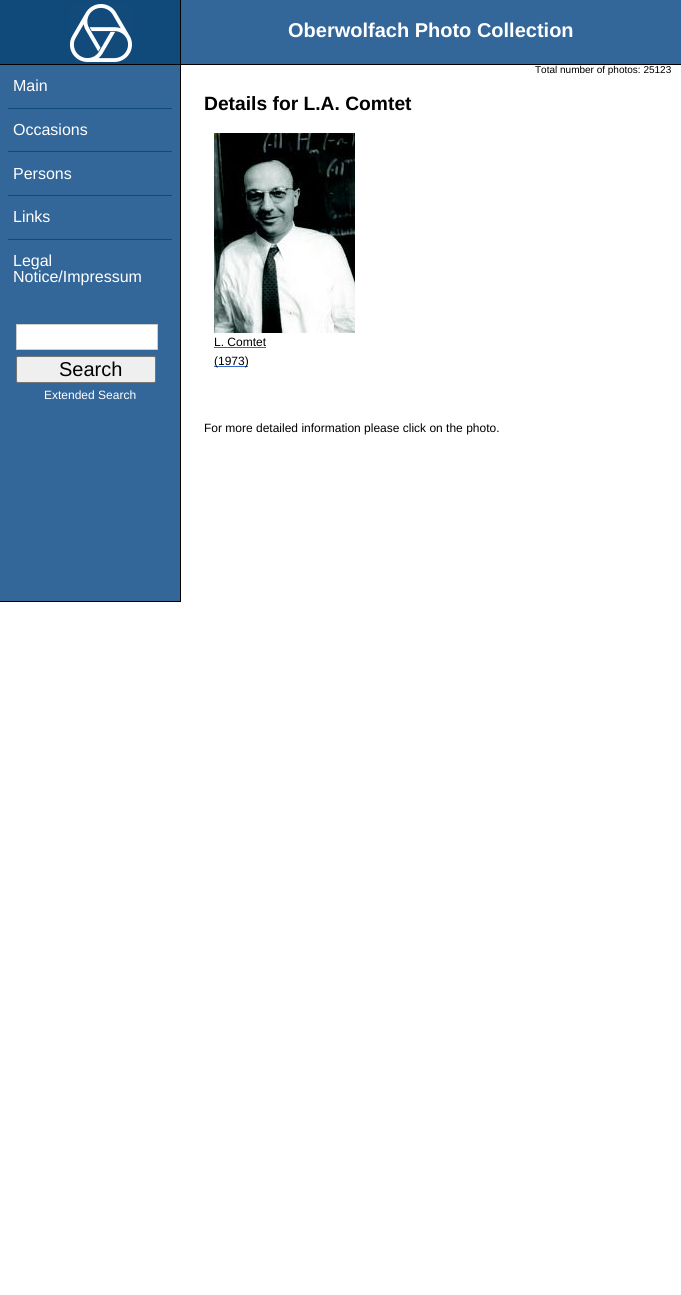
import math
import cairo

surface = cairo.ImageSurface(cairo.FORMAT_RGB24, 681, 1295)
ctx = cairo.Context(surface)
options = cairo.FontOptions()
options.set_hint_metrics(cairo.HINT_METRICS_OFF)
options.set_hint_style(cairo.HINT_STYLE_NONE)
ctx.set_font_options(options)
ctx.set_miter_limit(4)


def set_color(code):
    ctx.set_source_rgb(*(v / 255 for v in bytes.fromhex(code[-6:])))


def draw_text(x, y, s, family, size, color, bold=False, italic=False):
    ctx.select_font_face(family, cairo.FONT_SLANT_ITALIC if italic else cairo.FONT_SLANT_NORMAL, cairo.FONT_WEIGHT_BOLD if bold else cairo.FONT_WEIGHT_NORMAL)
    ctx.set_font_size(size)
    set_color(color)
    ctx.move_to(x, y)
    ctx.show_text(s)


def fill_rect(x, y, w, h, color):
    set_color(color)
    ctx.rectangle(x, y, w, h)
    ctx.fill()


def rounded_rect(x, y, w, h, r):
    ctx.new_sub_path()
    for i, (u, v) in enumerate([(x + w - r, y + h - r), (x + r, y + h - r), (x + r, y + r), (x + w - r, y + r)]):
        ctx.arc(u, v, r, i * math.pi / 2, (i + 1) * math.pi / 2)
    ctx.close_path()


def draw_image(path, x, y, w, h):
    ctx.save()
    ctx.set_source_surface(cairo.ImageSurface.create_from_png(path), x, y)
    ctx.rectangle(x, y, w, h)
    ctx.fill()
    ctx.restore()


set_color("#ffffff")
ctx.paint()
fill_rect(181, 0, 500, 64, "#336699")
fill_rect(0, 64, 681, 1, "#000000")
fill_rect(0, 0, 180, 64, "#104a7b")
fill_rect(180, 0, 1, 64, "#000000")
draw_image("assets/img1.png", 70, 4, 62, 58)
draw_text(288, 37, "Oberwolfach Photo Collection", "Liberation Sans", 20, "#ffffff", bold=True)
draw_text(535, 73, "Total number of photos: 25123", "Liberation Sans", 10, "#000000")
fill_rect(0, 65, 180, 536, "#336699")
fill_rect(180, 65, 1, 537, "#000000")
fill_rect(0, 601, 181, 1, "#000000")
draw_text(13, 91, "Main", "Liberation Sans", 16, "#ffffff")
fill_rect(8, 108, 164, 1, "#104a7b")
draw_text(13, 135, "Occasions", "Liberation Sans", 16, "#ffffff")
fill_rect(8, 151, 164, 1, "#104a7b")
draw_text(13, 179, "Persons", "Liberation Sans", 16, "#ffffff")
fill_rect(8, 195, 164, 1, "#104a7b")
draw_text(13, 222, "Links", "Liberation Sans", 16, "#ffffff")
fill_rect(8, 239, 164, 1, "#104a7b")
draw_text(13, 266, "Legal", "Liberation Sans", 16, "#ffffff")
draw_text(13, 282, "Notice/Impressum", "Liberation Sans", 16, "#ffffff")
ctx.rectangle(16.5, 324.5, 141, 25)
ctx.fill_preserve()
set_color("#cccccc")
ctx.set_line_width(1)
ctx.stroke()
set_color("#efefef")
rounded_rect(16.5, 356.5, 139, 26, 1.5)
ctx.fill_preserve()
set_color("#767676")
ctx.stroke()
draw_text(59, 376, "Search", "Liberation Sans", 20, "#000000")
draw_text(44, 399, "Extended Search", "Liberation Sans", 12, "#ffffff")
draw_text(204, 110, "Details for L.A. Comtet", "Liberation Sans", 19.25, "#000000", bold=True)
draw_image("assets/img2.png", 214, 133, 141, 200)
draw_text(214, 346, "L. Comtet", "Liberation Sans", 12, "#000000")
fill_rect(214, 347, 52, 1, "#3366cc")
fill_rect(214, 366, 34, 1, "#3366cc")
draw_text(214, 365, "(1973)", "Liberation Sans", 12, "#000000")
draw_text(204, 432, "For more detailed information please click on the photo.", "Liberation Sans", 12, "#000000")
surface.write_to_png("output.png")
